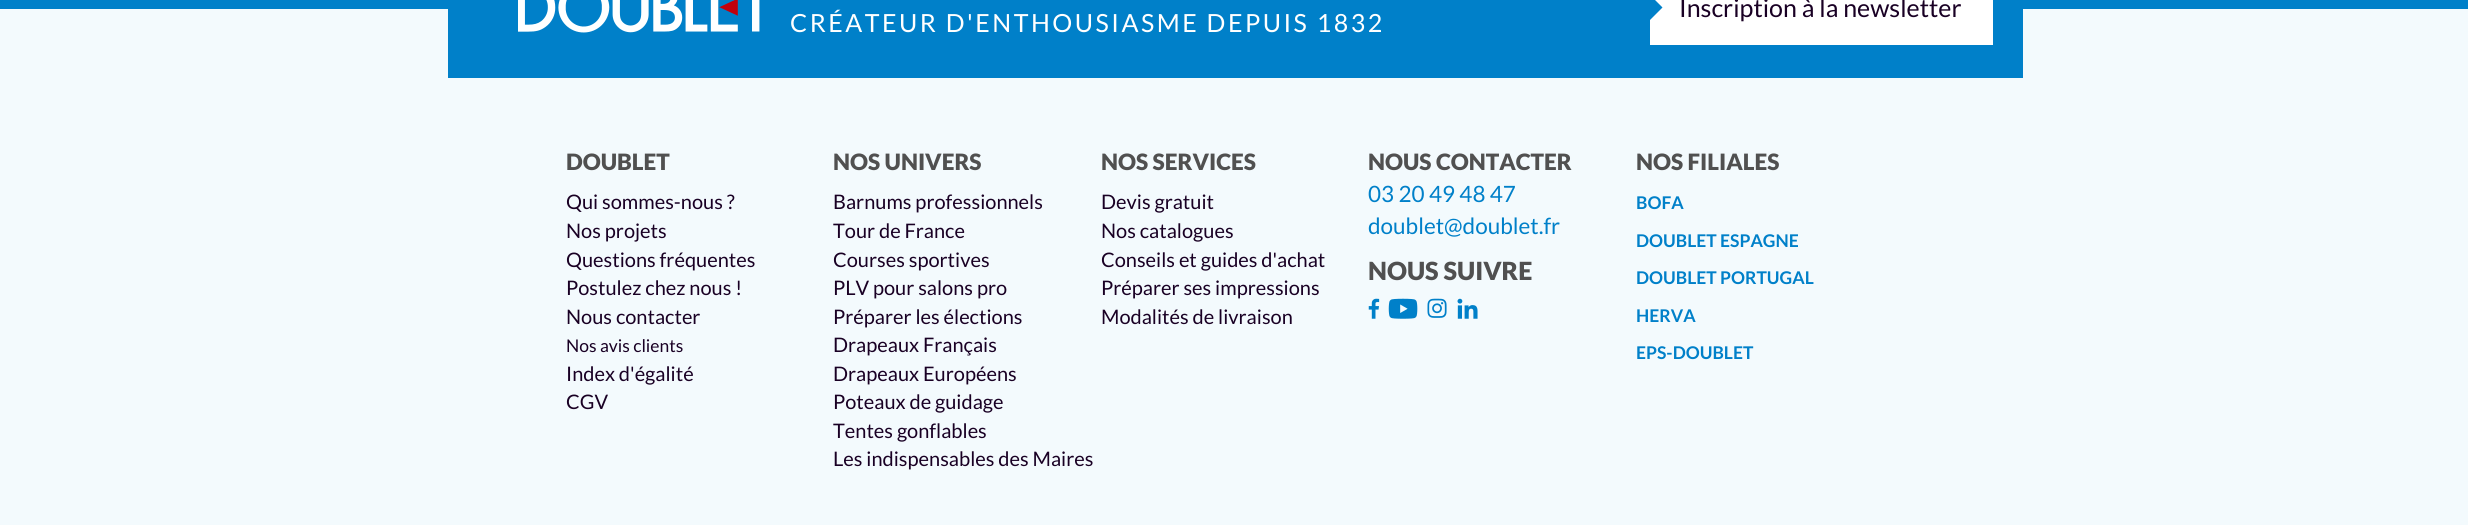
import math
import cairo

surface = cairo.ImageSurface(cairo.FORMAT_RGB24, 2468, 525)
ctx = cairo.Context(surface)
options = cairo.FontOptions()
options.set_hint_metrics(cairo.HINT_METRICS_OFF)
options.set_hint_style(cairo.HINT_STYLE_NONE)
ctx.set_font_options(options)
ctx.set_miter_limit(4)


def set_color(code):
    ctx.set_source_rgb(*(v / 255 for v in bytes.fromhex(code[-6:])))


def draw_text(x, y, s, family, size, color, bold=False, italic=False):
    ctx.select_font_face(family, cairo.FONT_SLANT_ITALIC if italic else cairo.FONT_SLANT_NORMAL, cairo.FONT_WEIGHT_BOLD if bold else cairo.FONT_WEIGHT_NORMAL)
    ctx.set_font_size(size)
    set_color(color)
    ctx.move_to(x, y)
    ctx.show_text(s)


def draw_spaced(x, y, s, letter, word):
    ctx.move_to(x, y)
    for ch in s:
        ctx.show_text(ch)
        ctx.rel_move_to(letter + word * (ch == ' '), 0)


def fill_rect(x, y, w, h, color):
    set_color(color)
    ctx.rectangle(x, y, w, h)
    ctx.fill()


def draw_image(path, x, y, w, h):
    ctx.save()
    ctx.set_source_surface(cairo.ImageSurface.create_from_png(path), x, y)
    ctx.rectangle(x, y, w, h)
    ctx.fill()
    ctx.restore()


set_color("#f3fafd")
ctx.paint()
fill_rect(0, 0, 2468, 9, "#0080c9")
fill_rect(448, 9, 1575, 69, "#0080c9")
draw_image("assets/img1.png", 518, 0, 242, 33)
ctx.select_font_face("Lato")
ctx.set_font_size(25)
set_color("#ffffff")
draw_spaced(790, 32, "CRÉATEUR D'ENTHOUSIASME DEPUIS 1832", 2.5, 0)
fill_rect(1650, 0, 343, 45, "#ffffff")
set_color("#0080c9")
ctx.new_path()
ctx.move_to(1650, 20)
ctx.line_to(1650, -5)
ctx.line_to(1662.5, 7.5)
ctx.close_path()
ctx.fill()
draw_text(1679, 17, "Inscription à la newsletter", "Lato", 25, "#190024")
draw_text(566, 170, "DOUBLET", "Lato Black", 22.5, "#505050")
draw_text(566, 209, "Qui sommes-nous ?", "Lato", 20, "#190024")
draw_text(566, 238, "Nos projets", "Lato", 20, "#190024")
draw_text(566, 267, "Questions fréquentes", "Lato", 20, "#190024")
draw_text(566, 295, "Postulez chez nous !", "Lato", 20, "#190024")
draw_text(566, 324, "Nous contacter", "Lato", 20, "#190024")
draw_text(566, 352, "Nos avis clients", "Lato", 17.5, "#190024")
draw_text(566, 381, "Index d'égalité", "Lato", 20, "#190024")
draw_text(566, 409, "CGV", "Lato", 20, "#190024")
draw_text(833, 170, "NOS UNIVERS", "Lato Black", 22.5, "#505050")
draw_text(833, 209, "Barnums professionnels", "Lato", 20, "#190024")
draw_text(833, 238, "Tour de France", "Lato", 20, "#190024")
draw_text(833, 267, "Courses sportives", "Lato", 20, "#190024")
draw_text(833, 295, "PLV pour salons pro", "Lato", 20, "#190024")
draw_text(833, 324, "Préparer les élections", "Lato", 20, "#190024")
draw_text(833, 352, "Drapeaux Français", "Lato", 20, "#190024")
draw_text(833, 381, "Drapeaux Européens", "Lato", 20, "#190024")
draw_text(833, 409, "Poteaux de guidage", "Lato", 20, "#190024")
draw_text(833, 438, "Tentes gonflables", "Lato", 20, "#190024")
draw_text(833, 466, "Les indispensables des Maires", "Lato", 20, "#190024")
draw_text(1101, 170, "NOS SERVICES", "Lato Black", 22.5, "#505050")
draw_text(1101, 209, "Devis gratuit", "Lato", 20, "#190024")
draw_text(1101, 238, "Nos catalogues", "Lato", 20, "#190024")
draw_text(1101, 267, "Conseils et guides d'achat", "Lato", 20, "#190024")
draw_text(1101, 295, "Préparer ses impressions", "Lato", 20, "#190024")
draw_text(1101, 324, "Modalités de livraison", "Lato", 20, "#190024")
draw_text(1368, 170, "NOUS CONTACTER", "Lato Black", 22.5, "#505050")
draw_text(1368, 202, "03 20 49 48 47", "Lato", 22.5, "#0080c9")
draw_text(1368, 234, "doublet@doublet.fr", "Lato", 22.5, "#0080c9")
draw_text(1368, 280, "NOUS SUIVRE", "Lato Black", 25, "#505050")
draw_image("assets/img2.png", 1368, 298, 12, 21)
draw_image("assets/img3.png", 1388, 298, 30, 21)
draw_image("assets/img4.png", 1427, 298, 20, 20)
draw_image("assets/img5.png", 1457, 298, 21, 21)
draw_text(1636, 170, "NOS FILIALES", "Lato Black", 22.5, "#505050")
draw_text(1636, 209, "BOFA", "Lato", 17.5, "#0080c9", bold=True)
draw_text(1636, 247, "DOUBLET ESPAGNE", "Lato", 17.5, "#0080c9", bold=True)
draw_text(1636, 284, "DOUBLET PORTUGAL", "Lato", 17.5, "#0080c9", bold=True)
draw_text(1636, 322, "HERVA", "Lato", 17.5, "#0080c9", bold=True)
draw_text(1636, 359, "EPS-DOUBLET", "Lato", 17.5, "#0080c9", bold=True)
surface.write_to_png("output.png")
